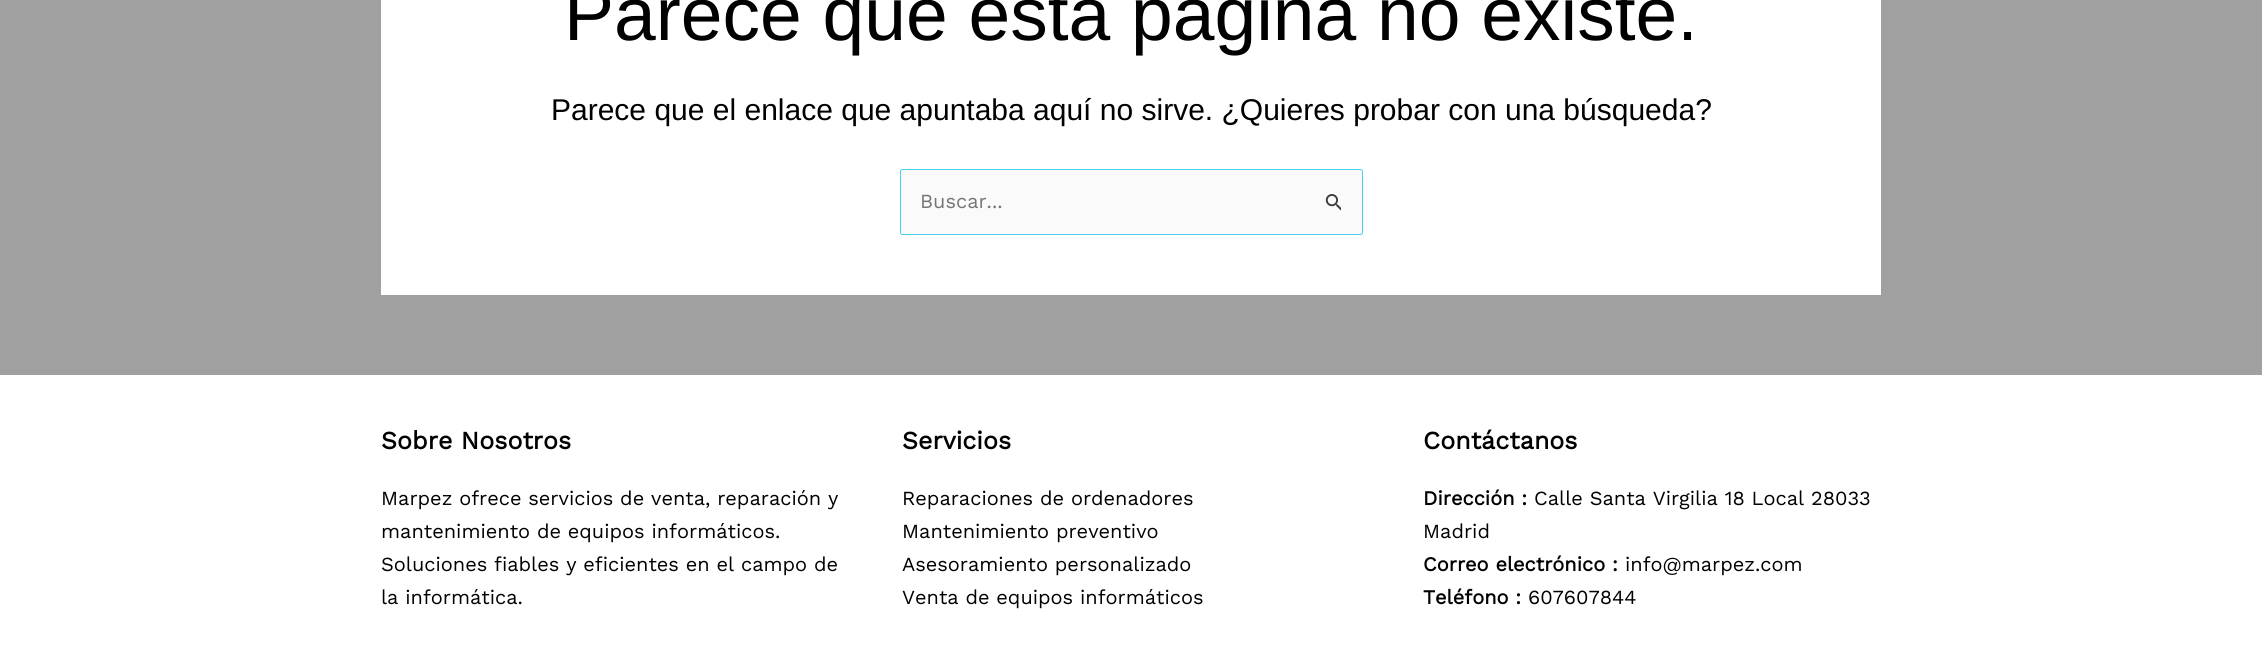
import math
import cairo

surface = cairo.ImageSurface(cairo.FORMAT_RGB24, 2262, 655)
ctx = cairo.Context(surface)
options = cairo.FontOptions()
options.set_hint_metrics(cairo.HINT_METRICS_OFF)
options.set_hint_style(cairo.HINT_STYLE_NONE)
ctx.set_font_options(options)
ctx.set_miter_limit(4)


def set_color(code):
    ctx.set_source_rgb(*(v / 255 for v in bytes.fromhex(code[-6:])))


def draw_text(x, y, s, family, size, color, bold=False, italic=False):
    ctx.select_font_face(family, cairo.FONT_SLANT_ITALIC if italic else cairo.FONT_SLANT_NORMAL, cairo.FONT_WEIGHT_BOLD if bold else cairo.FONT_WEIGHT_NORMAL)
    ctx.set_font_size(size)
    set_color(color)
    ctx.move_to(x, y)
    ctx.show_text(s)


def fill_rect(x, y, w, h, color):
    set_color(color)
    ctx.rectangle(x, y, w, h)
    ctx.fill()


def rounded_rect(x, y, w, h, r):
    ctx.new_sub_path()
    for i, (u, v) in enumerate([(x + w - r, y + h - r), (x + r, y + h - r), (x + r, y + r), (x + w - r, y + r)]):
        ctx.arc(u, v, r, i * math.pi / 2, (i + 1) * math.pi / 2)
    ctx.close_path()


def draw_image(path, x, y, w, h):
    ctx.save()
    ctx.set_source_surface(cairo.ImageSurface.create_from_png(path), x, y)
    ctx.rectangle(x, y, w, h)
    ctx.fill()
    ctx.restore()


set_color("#a0a0a0")
ctx.paint()
fill_rect(381, 0, 1500, 295, "#ffffff")
draw_text(564, 40, "Parece que esta página no existe.", "Liberation Sans", 75, "#000000")
draw_text(551, 120, "Parece que el enlace que apuntaba aquí no sirve. ¿Quieres probar con una búsqueda?", "Liberation Sans", 30, "#000000")
set_color("#fafafa")
rounded_rect(900.5, 169.5, 462, 65, 2)
ctx.fill_preserve()
set_color("#48d2ee")
ctx.set_line_width(1)
ctx.stroke()
draw_text(920, 208, "Buscar...", "Work Sans", 20, "#757575")
draw_image("assets/img1.png", 1325, 194, 16, 17)
fill_rect(0, 375, 2262, 280, "#ffffff")
draw_text(381, 449, "Sobre Nosotros", "Work Sans", 25, "#000000", bold=True)
draw_text(381, 505, "Marpez ofrece servicios de venta, reparación y", "Work Sans", 20, "#000000")
draw_text(381, 538, "mantenimiento de equipos informáticos.", "Work Sans", 20, "#000000")
draw_text(381, 571, "Soluciones fiables y eficientes en el campo de", "Work Sans", 20, "#000000")
draw_text(381, 604, "la informática.", "Work Sans", 20, "#000000")
draw_text(902, 449, "Servicios", "Work Sans", 25, "#000000", bold=True)
draw_text(902, 505, "Reparaciones de ordenadores", "Work Sans", 20, "#000000")
draw_text(902, 538, "Mantenimiento preventivo", "Work Sans", 20, "#000000")
draw_text(902, 571, "Asesoramiento personalizado", "Work Sans", 20, "#000000")
draw_text(902, 604, "Venta de equipos informáticos", "Work Sans", 20, "#000000")
draw_text(1423, 449, "Contáctanos", "Work Sans", 25, "#000000", bold=True)
draw_text(1423, 505, "Dirección :", "Work Sans", 20, "#000000", bold=True)
draw_text(1534, 505, "Calle Santa Virgilia 18 Local 28033", "Work Sans", 20, "#000000")
draw_text(1423, 538, "Madrid", "Work Sans", 20, "#000000")
draw_text(1423, 571, "Correo electrónico :", "Work Sans", 20, "#000000", bold=True)
draw_text(1625, 571, "info@marpez.com", "Work Sans", 20, "#000000")
draw_text(1423, 604, "Teléfono :", "Work Sans", 20, "#000000", bold=True)
draw_text(1528, 604, "607607844", "Work Sans", 20, "#000000")
surface.write_to_png("output.png")
